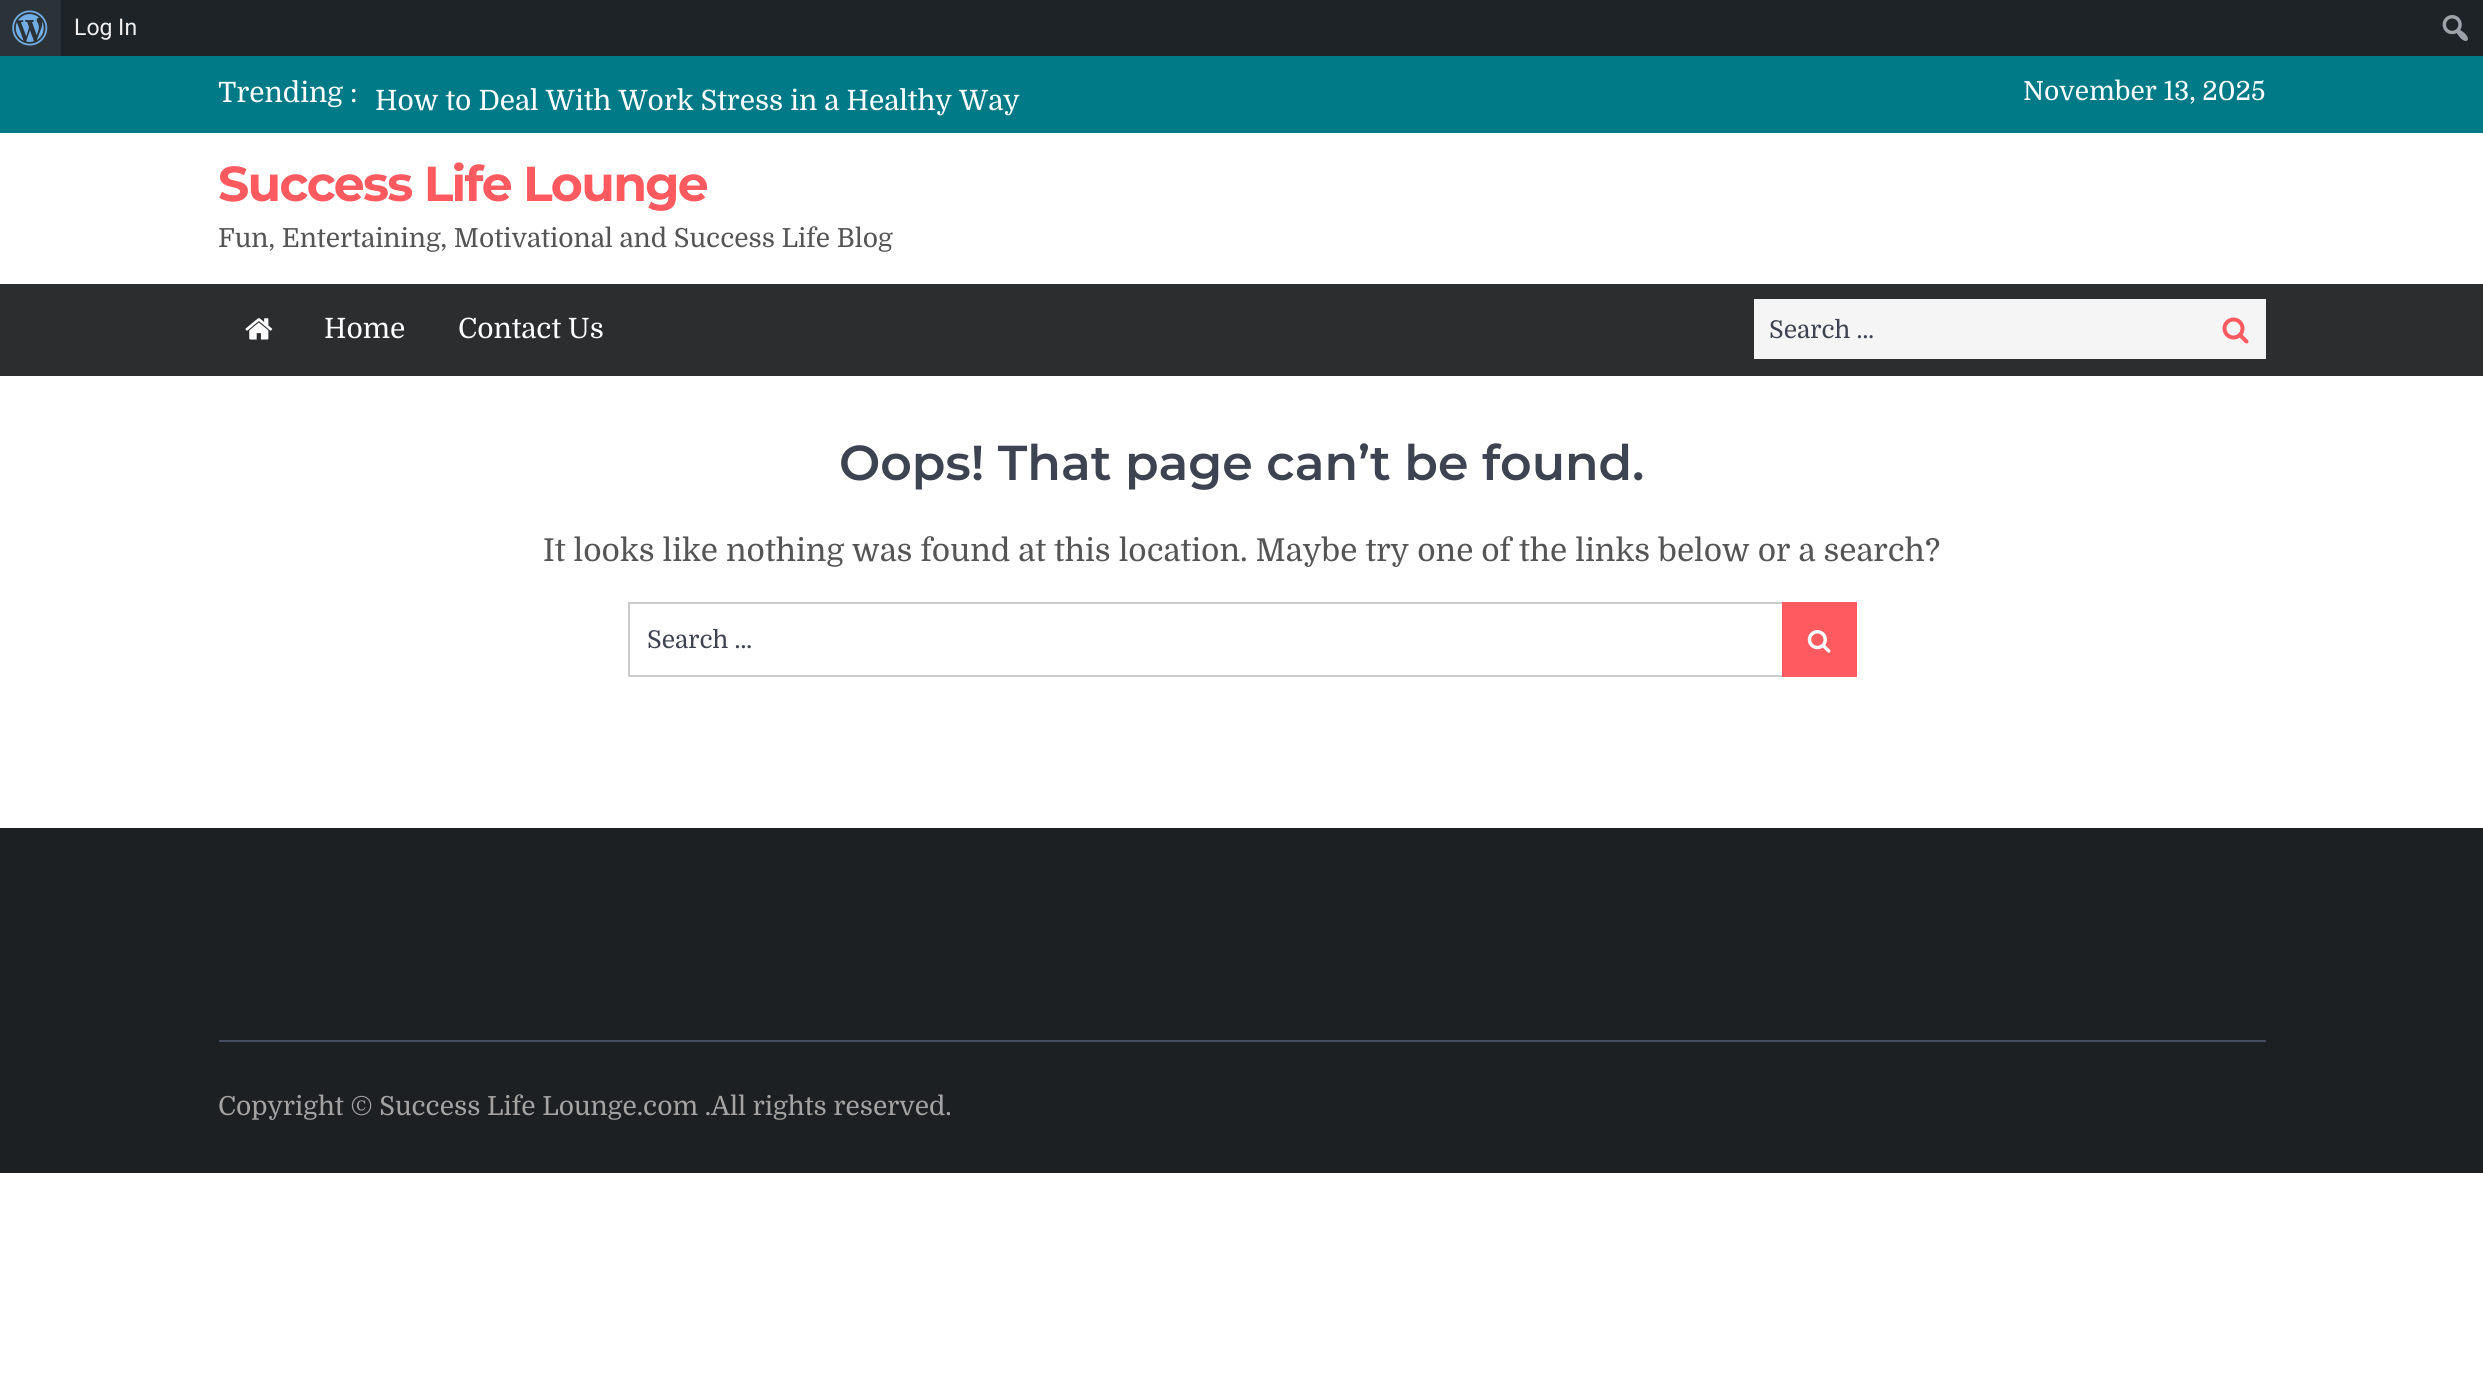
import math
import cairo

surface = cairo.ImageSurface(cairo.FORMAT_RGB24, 2483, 1397)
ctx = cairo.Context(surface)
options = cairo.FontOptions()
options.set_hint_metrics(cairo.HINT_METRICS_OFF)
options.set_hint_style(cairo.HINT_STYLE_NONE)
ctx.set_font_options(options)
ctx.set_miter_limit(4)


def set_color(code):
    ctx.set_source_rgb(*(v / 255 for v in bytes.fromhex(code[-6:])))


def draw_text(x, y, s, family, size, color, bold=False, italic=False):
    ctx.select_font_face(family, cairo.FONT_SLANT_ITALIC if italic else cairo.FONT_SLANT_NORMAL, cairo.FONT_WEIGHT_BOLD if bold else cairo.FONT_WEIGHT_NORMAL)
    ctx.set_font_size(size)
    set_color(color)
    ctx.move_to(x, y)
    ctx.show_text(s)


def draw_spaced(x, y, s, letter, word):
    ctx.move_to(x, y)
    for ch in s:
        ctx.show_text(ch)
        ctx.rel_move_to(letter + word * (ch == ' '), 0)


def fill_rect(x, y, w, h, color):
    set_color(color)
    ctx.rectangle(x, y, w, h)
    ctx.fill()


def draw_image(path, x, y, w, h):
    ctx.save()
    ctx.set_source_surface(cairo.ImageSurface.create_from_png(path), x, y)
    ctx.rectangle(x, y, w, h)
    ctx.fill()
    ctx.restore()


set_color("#ffffff")
ctx.paint()
fill_rect(61, 0, 2422, 56, "#1d2327")
fill_rect(0, 0, 61, 56, "#2c3338")
draw_image("assets/img1.png", 12, 10, 36, 36)
draw_text(74, 35, "Log In", "Roboto", 23, "#f0f0f1")
draw_image("assets/img2.png", 2442, 15, 26, 26)
fill_rect(0, 56, 2483, 77, "#007a87")
ctx.save()
ctx.rectangle(219, 74, 1228, 42)
ctx.clip()
draw_text(218, 102, "Trending :", "Domine", 28, "#ffffff")
ctx.restore()
draw_text(375, 110, "How to Deal With Work Stress in a Healthy Way", "Domine", 28, "#ffffff")
draw_text(2023, 100, "November 13, 2025", "Domine", 26.25, "#ffffff")
ctx.select_font_face("Montserrat", cairo.FONT_SLANT_NORMAL, cairo.FONT_WEIGHT_BOLD)
ctx.set_font_size(49)
set_color("#ff5a5f")
draw_spaced(218, 201, "Success Life Lounge", -1.75, 0)
draw_text(218, 247, "Fun, Entertaining, Motivational and Success Life Blog", "Domine", 26.25, "#555555")
fill_rect(0, 284, 2483, 92, "#2b2d2e")
draw_image("assets/img3.png", 245, 318, 28, 22)
draw_text(324, 338, "Home", "Domine", 28, "#ffffff")
draw_text(458, 338, "Contact Us", "Domine", 28, "#ffffff")
fill_rect(1754, 299, 512, 60, "#f5f5f5")
draw_text(1769, 338, "Search …", "Domine", 24.5, "#3d4351")
draw_image("assets/img4.png", 2222, 317, 27, 27)
draw_text(839, 480, "Oops! That page can’t be found.", "Montserrat SemiBold", 49, "#3d4351")
draw_text(543, 561, "It looks like nothing was found at this location. Maybe try one of the links below or a search?", "Domine", 31.5, "#555555")
ctx.rectangle(629, 603, 1227, 73)
set_color("#cccccc")
ctx.stroke()
draw_text(647, 648, "Search …", "Domine", 24.5, "#3d4351")
fill_rect(1782, 602, 75, 75, "#ff5a5f")
draw_image("assets/img5.png", 1807, 630, 24, 23)
fill_rect(0, 828, 2483, 345, "#1d2022")
fill_rect(219, 1040, 2047, 2, "#464d60")
draw_text(218, 1115, "Copyright © Success Life Lounge.com .All rights reserved.", "Domine", 26.25, "#a3a3a3")
surface.write_to_png("output.png")
